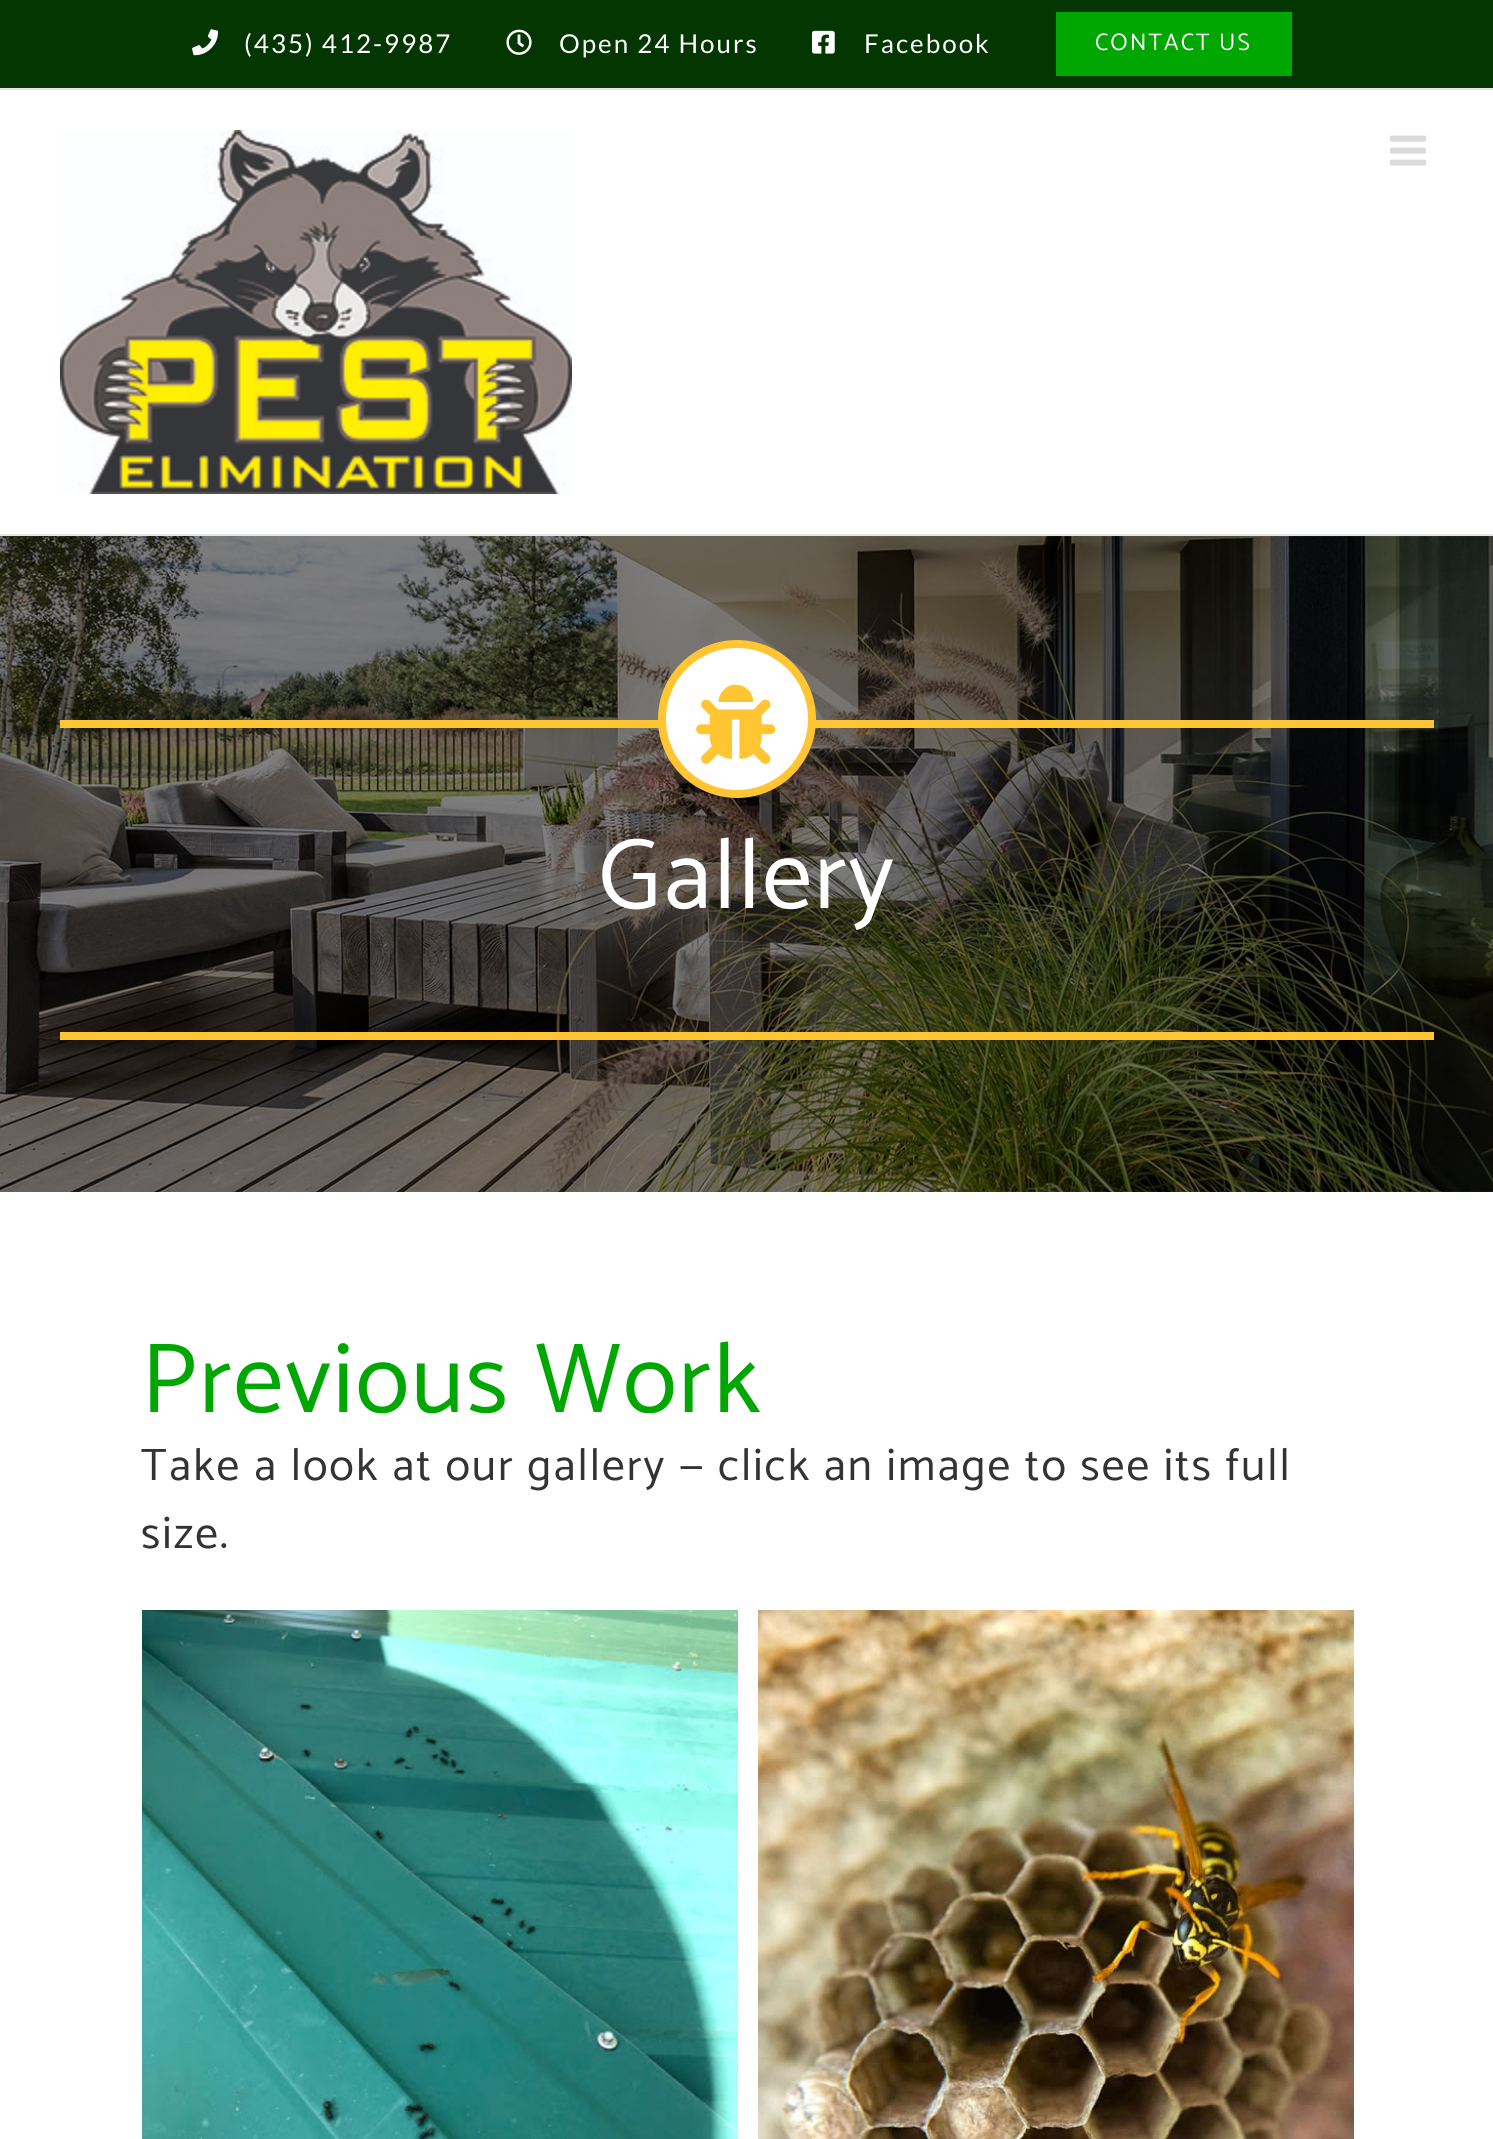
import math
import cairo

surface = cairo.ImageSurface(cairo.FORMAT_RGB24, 1493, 2139)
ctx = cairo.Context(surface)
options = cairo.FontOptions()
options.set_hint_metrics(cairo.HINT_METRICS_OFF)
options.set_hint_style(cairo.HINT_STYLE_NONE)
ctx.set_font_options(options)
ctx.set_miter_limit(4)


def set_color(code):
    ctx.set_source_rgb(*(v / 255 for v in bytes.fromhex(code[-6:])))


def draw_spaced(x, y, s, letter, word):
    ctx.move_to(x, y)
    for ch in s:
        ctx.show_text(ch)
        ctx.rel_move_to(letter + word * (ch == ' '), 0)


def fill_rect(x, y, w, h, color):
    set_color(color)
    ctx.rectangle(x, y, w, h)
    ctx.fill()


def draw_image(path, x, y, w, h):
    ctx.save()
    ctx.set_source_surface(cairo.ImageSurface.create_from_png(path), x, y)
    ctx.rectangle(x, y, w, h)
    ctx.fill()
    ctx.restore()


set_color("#ffffff")
ctx.paint()
fill_rect(0, 0, 1493, 88, "#043601")
fill_rect(0, 88, 1493, 2, "#e5e5e5")
draw_image("assets/img1.png", 192, 29, 26, 27)
ctx.select_font_face("Lato")
ctx.set_font_size(26)
set_color("#ffffff")
draw_spaced(244, 53, "(435) 412-9987", 2, 0)
draw_image("assets/img2.png", 506, 29, 26, 26)
draw_spaced(559, 53, "Open 24 Hours", 2, 0)
draw_image("assets/img3.png", 812, 30, 23, 24)
draw_spaced(864, 53, "Facebook", 2, 0)
fill_rect(1056, 12, 236, 64, "#00a700")
ctx.select_font_face("Catamaran Thin")
ctx.set_font_size(24)
set_color("#ffffff")
draw_spaced(1095, 50, "CONTACT US", 2, 0)
fill_rect(0, 534, 1493, 2, "#e5e5e5")
draw_image("assets/img4.png", 60, 130, 512, 364)
draw_image("assets/img5.png", 1390, 135, 36, 31)
draw_image("assets/img6.png", 0, 536, 1493, 656)
fill_rect(60, 720, 1374, 8, "#ffc532")
set_color("#ffffff")
ctx.arc(737, 719, 75, 0, 2 * math.pi)
ctx.fill_preserve()
set_color("#ffc532")
ctx.set_line_width(8)
ctx.stroke()
draw_image("assets/img7.png", 696, 684, 80, 80)
ctx.set_font_size(100)
set_color("#ffffff")
draw_spaced(598, 908, "Gallery", 2, 0)
fill_rect(60, 1032, 1374, 8, "#ffc532")
set_color("#00a700")
draw_spaced(141, 1412, "Previous Work", 2, 0)
ctx.set_font_size(45.6)
set_color("#333333")
draw_spaced(141, 1480, "Take a look at our gallery — click an image to see its full", 2, 0)
draw_spaced(141, 1548, "size.", 2, 0)
draw_image("assets/img8.png", 142, 1610, 596, 529)
draw_image("assets/img9.png", 758, 1610, 596, 529)
surface.write_to_png("output.png")
